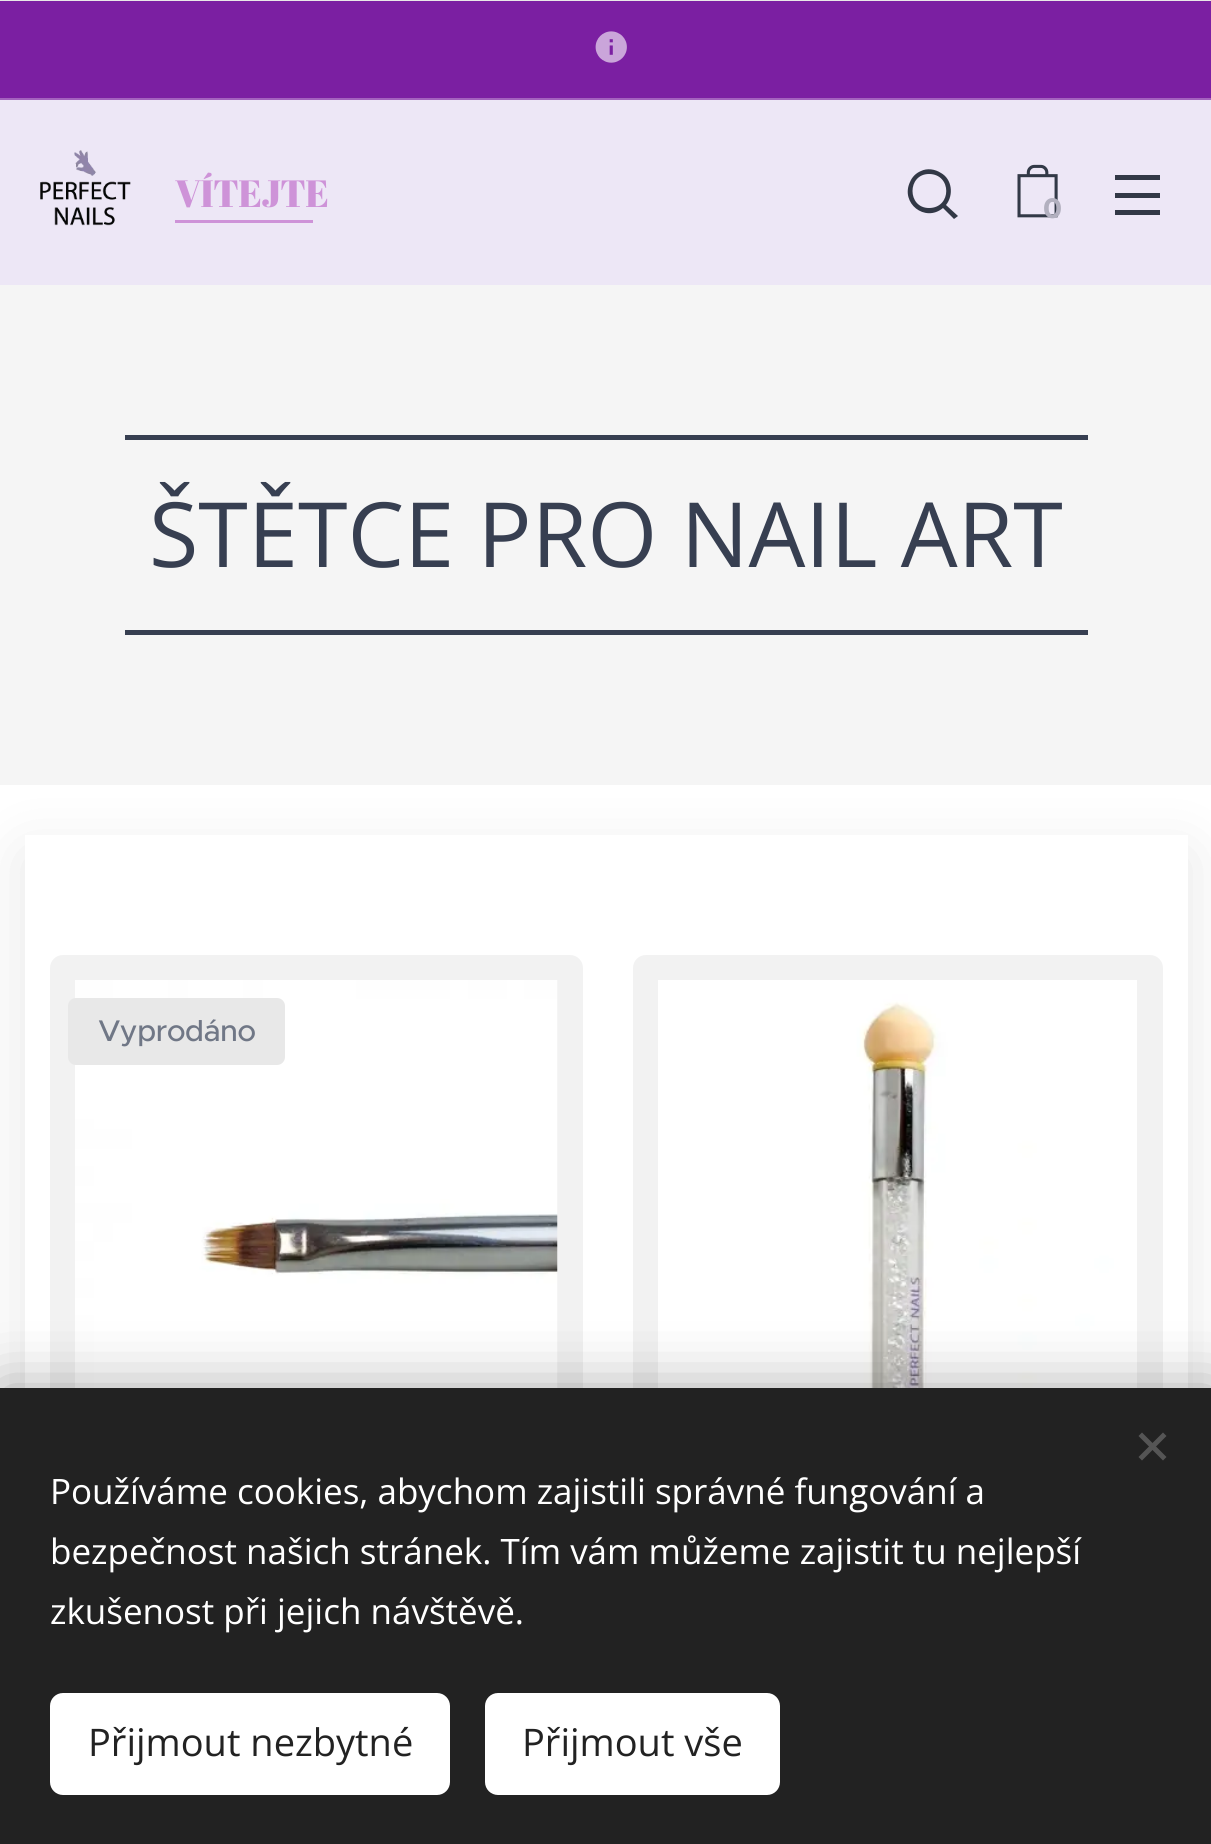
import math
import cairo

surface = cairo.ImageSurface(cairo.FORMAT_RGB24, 1211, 1844)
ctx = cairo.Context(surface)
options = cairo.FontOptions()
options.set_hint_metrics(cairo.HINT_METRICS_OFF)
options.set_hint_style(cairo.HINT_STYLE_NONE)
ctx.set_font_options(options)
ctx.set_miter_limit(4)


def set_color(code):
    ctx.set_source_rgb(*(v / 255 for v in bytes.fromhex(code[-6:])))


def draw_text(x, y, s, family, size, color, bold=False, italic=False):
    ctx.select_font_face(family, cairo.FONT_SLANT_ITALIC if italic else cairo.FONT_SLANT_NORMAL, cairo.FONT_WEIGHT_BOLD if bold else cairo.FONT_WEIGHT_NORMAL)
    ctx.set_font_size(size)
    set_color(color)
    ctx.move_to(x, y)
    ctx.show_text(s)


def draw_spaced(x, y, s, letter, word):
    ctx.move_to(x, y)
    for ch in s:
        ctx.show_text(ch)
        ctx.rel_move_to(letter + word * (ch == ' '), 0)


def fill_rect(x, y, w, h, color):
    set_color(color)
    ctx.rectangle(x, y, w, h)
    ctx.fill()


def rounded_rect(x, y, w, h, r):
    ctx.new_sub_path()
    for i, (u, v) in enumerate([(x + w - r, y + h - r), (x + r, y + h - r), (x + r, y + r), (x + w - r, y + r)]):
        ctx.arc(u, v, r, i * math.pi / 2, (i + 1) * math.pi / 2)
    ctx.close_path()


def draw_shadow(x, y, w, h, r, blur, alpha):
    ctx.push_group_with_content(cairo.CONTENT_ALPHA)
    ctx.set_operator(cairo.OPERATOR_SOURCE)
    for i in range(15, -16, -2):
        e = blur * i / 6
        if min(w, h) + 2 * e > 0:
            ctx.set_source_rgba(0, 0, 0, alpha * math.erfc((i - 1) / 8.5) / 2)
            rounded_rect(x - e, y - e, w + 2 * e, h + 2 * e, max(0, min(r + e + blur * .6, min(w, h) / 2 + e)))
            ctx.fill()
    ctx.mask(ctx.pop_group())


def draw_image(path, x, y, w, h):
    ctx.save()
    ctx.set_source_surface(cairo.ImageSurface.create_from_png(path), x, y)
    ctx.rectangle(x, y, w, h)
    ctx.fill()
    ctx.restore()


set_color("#ffffff")
ctx.paint()
fill_rect(0, 1, 1211, 97, "#7b1fa2")
fill_rect(0, 98, 1211, 2, "#a362be")
draw_image("assets/img1.png", 595, 31, 32, 32)
fill_rect(0, 100, 1211, 185, "#ede7f6")
draw_image("assets/img2.png", 40, 150, 91, 76)
ctx.select_font_face("Abril Fatface")
ctx.set_font_size(38)
set_color("#ce93d8")
draw_spaced(175, 207, "VÍTEJTE", -0.75, 0)
fill_rect(175, 220, 138, 3, "#ce93d8")
fill_rect(0, 0, 1211, 1, "#e8e8e8")
set_color("#323846")
ctx.new_path()
ctx.move_to(958, 216)
ctx.line_to(946, 205)
ctx.curve_to(954, 195, 952, 179, 941, 173)
ctx.curve_to(935, 169, 927, 168, 921, 171)
ctx.curve_to(916, 173, 912, 177, 910, 182)
ctx.curve_to(900, 203, 925, 223, 943, 208)
ctx.line_to(954, 219)
ctx.close_path()
ctx.move_to(929, 208)
ctx.curve_to(907, 208, 907, 174, 929, 174)
ctx.curve_to(952, 174, 952, 208, 929, 208)
ctx.close_path()
ctx.fill()
draw_image("assets/img3.png", 1017, 164, 41, 54)
draw_text(1043, 218, "0", "Montserrat", 28, "#b2b0bf", bold=True)
fill_rect(1115, 193, 45, 5, "#323846")
fill_rect(1115, 175, 45, 5, "#323846")
fill_rect(1115, 210, 45, 5, "#323846")
fill_rect(0, 285, 1211, 500, "#f5f5f5")
fill_rect(125, 435, 963, 5, "#373f51")
fill_rect(125, 630, 963, 5, "#373f51")
draw_text(149, 567, "ŠTĚTCE PRO NAIL ART", "Open Sans", 90, "#373f51")
set_color("#000000")
draw_shadow(25, 855, 1163, 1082, 0, 31, 0.1)
fill_rect(25, 835, 1163, 553, "#ffffff")
set_color("#f2f2f2")
rounded_rect(50, 955, 533, 858, 13)
ctx.fill()
draw_image("assets/img4.png", 75, 980, 483, 408)
set_color("#e8e8e8")
rounded_rect(68, 998, 217, 67, 8)
ctx.fill()
ctx.select_font_face("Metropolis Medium")
ctx.set_font_size(30)
set_color("#707786")
draw_spaced(98, 1041, "Vyprodáno", -0.75, 0)
set_color("#f2f2f2")
rounded_rect(633, 955, 530, 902, 13)
ctx.fill()
draw_image("assets/img5.png", 658, 980, 479, 408)
set_color("#000000")
draw_shadow(0, 1388, 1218, 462, 0, 31, 0.33)
fill_rect(0, 1388, 1211, 456, "#222222")
set_color("#555555")
ctx.new_path()
ctx.move_to(1138.5, 1457)
ctx.line_to(1163, 1432.5)
ctx.line_to(1166.5, 1436)
ctx.line_to(1142, 1460.5)
ctx.close_path()
ctx.fill()
ctx.new_path()
ctx.move_to(1142, 1432.5)
ctx.line_to(1166.5, 1457)
ctx.line_to(1163, 1460.5)
ctx.line_to(1138.5, 1436)
ctx.close_path()
ctx.fill()
draw_text(50, 1504, "Používáme cookies, abychom zajistili správné fungování a", "Open Sans", 35, "#ffffff")
draw_text(50, 1564, "bezpečnost našich stránek. Tím vám můžeme zajistit tu nejlepší", "Open Sans", 35, "#ffffff")
draw_text(50, 1624, "zkušenost při jejich návštěvě.", "Open Sans", 35, "#ffffff")
rounded_rect(50, 1693, 400, 102, 13)
ctx.fill()
draw_text(88, 1756, "Přijmout nezbytné", "Open Sans", 38, "#222222")
set_color("#ffffff")
rounded_rect(485, 1693, 295, 102, 13)
ctx.fill()
draw_text(522, 1756, "Přijmout vše", "Open Sans", 38, "#222222")
surface.write_to_png("output.png")
